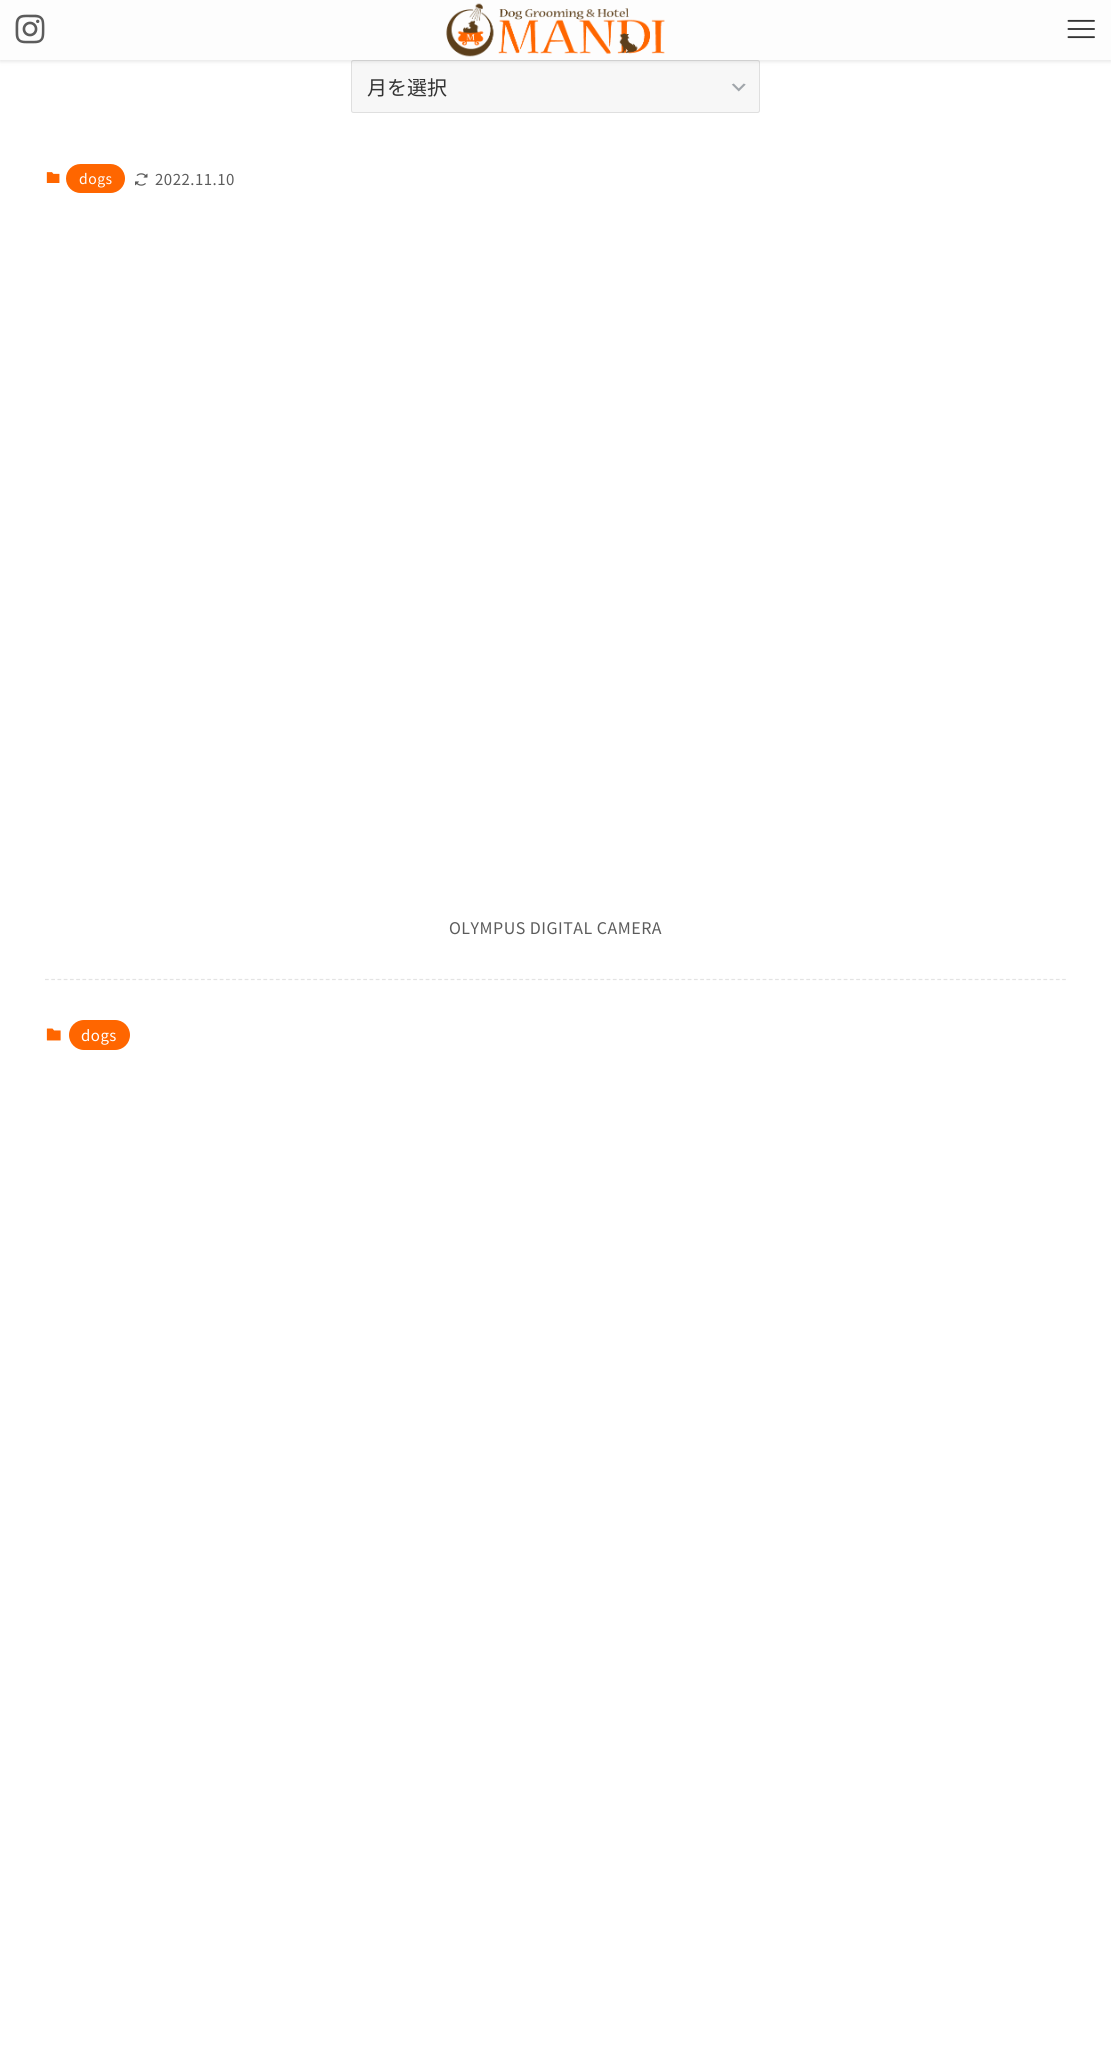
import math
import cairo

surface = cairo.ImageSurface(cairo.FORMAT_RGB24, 1111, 2066)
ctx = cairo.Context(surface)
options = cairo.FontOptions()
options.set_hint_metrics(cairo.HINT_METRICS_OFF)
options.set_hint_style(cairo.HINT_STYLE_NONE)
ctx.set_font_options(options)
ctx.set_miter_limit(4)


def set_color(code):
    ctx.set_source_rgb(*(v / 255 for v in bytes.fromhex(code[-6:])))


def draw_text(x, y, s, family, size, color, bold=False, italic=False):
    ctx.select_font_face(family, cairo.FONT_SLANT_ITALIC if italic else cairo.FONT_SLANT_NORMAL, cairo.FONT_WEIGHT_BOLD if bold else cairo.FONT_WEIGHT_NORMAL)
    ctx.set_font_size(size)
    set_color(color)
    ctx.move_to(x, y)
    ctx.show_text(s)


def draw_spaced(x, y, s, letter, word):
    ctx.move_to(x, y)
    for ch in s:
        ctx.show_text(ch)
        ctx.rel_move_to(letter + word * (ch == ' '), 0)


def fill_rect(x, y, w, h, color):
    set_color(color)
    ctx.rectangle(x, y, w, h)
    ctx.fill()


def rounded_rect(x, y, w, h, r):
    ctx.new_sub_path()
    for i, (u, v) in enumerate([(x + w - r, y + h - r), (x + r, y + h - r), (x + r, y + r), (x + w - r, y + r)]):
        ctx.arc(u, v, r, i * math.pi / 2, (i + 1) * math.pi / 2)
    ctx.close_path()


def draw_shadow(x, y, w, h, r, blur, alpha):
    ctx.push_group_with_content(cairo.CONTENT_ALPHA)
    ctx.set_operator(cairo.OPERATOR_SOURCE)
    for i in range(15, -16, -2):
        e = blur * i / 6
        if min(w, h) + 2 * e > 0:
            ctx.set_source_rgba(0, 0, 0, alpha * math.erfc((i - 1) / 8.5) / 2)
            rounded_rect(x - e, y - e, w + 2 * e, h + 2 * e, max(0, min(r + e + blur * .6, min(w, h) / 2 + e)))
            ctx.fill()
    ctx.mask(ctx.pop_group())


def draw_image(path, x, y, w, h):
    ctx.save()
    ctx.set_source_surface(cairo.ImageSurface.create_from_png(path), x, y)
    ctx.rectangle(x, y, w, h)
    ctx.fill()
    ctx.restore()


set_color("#ffffff")
ctx.paint()
set_color("#f7f7f7")
rounded_rect(351, 60, 409, 53, 2.5)
ctx.fill()
draw_image("assets/img4.png", 731, 83, 15, 9)
rounded_rect(351.5, 60.5, 408, 52, 2)
set_color("#dfdfdf")
ctx.set_line_width(1)
ctx.stroke()
set_color("#000000")
draw_shadow(0, 1, 1111, 60, 0, 2.5, 0.12)
fill_rect(0, 0, 1111, 60, "#fdfdfd")
draw_image("assets/img1.png", 15, 14, 30, 30)
draw_image("assets/img2.png", 446, 3, 219, 54)
draw_image("assets/img3.png", 1067, 19, 28, 20)
draw_text(367, 95, "月を選択", "Noto Sans JP", 20, "#333333")
draw_image("assets/img5.png", 46, 172, 14, 11)
set_color("#ff6600")
rounded_rect(66, 164, 59, 29, 14.5)
ctx.fill()
ctx.set_font_size(14)
set_color("#ffffff")
draw_spaced(79, 184, "dogs", 0.5, 0)
draw_image("assets/img6.png", 135, 173, 13, 13)
ctx.set_font_size(15)
set_color("#5c5c5c")
draw_spaced(155, 185, "2022.11.10", 0.5, 0)
ctx.set_font_size(16)
draw_spaced(449, 934, "OLYMPUS DIGITAL CAMERA", 0.5, 0)
ctx.new_path()
ctx.move_to(45, 979.5)
ctx.line_to(1066, 979.5)
set_color("#e3e3e3")
ctx.set_line_width(1.2)
ctx.set_dash([3.75, 2.49])
ctx.stroke()
draw_image("assets/img7.png", 46, 1028, 15, 13)
set_color("#ff6600")
rounded_rect(69, 1020, 61, 30, 15)
ctx.fill()
ctx.set_font_size(15)
set_color("#ffffff")
draw_spaced(81, 1041, "dogs", 0.5, 0)
surface.write_to_png("output.png")
